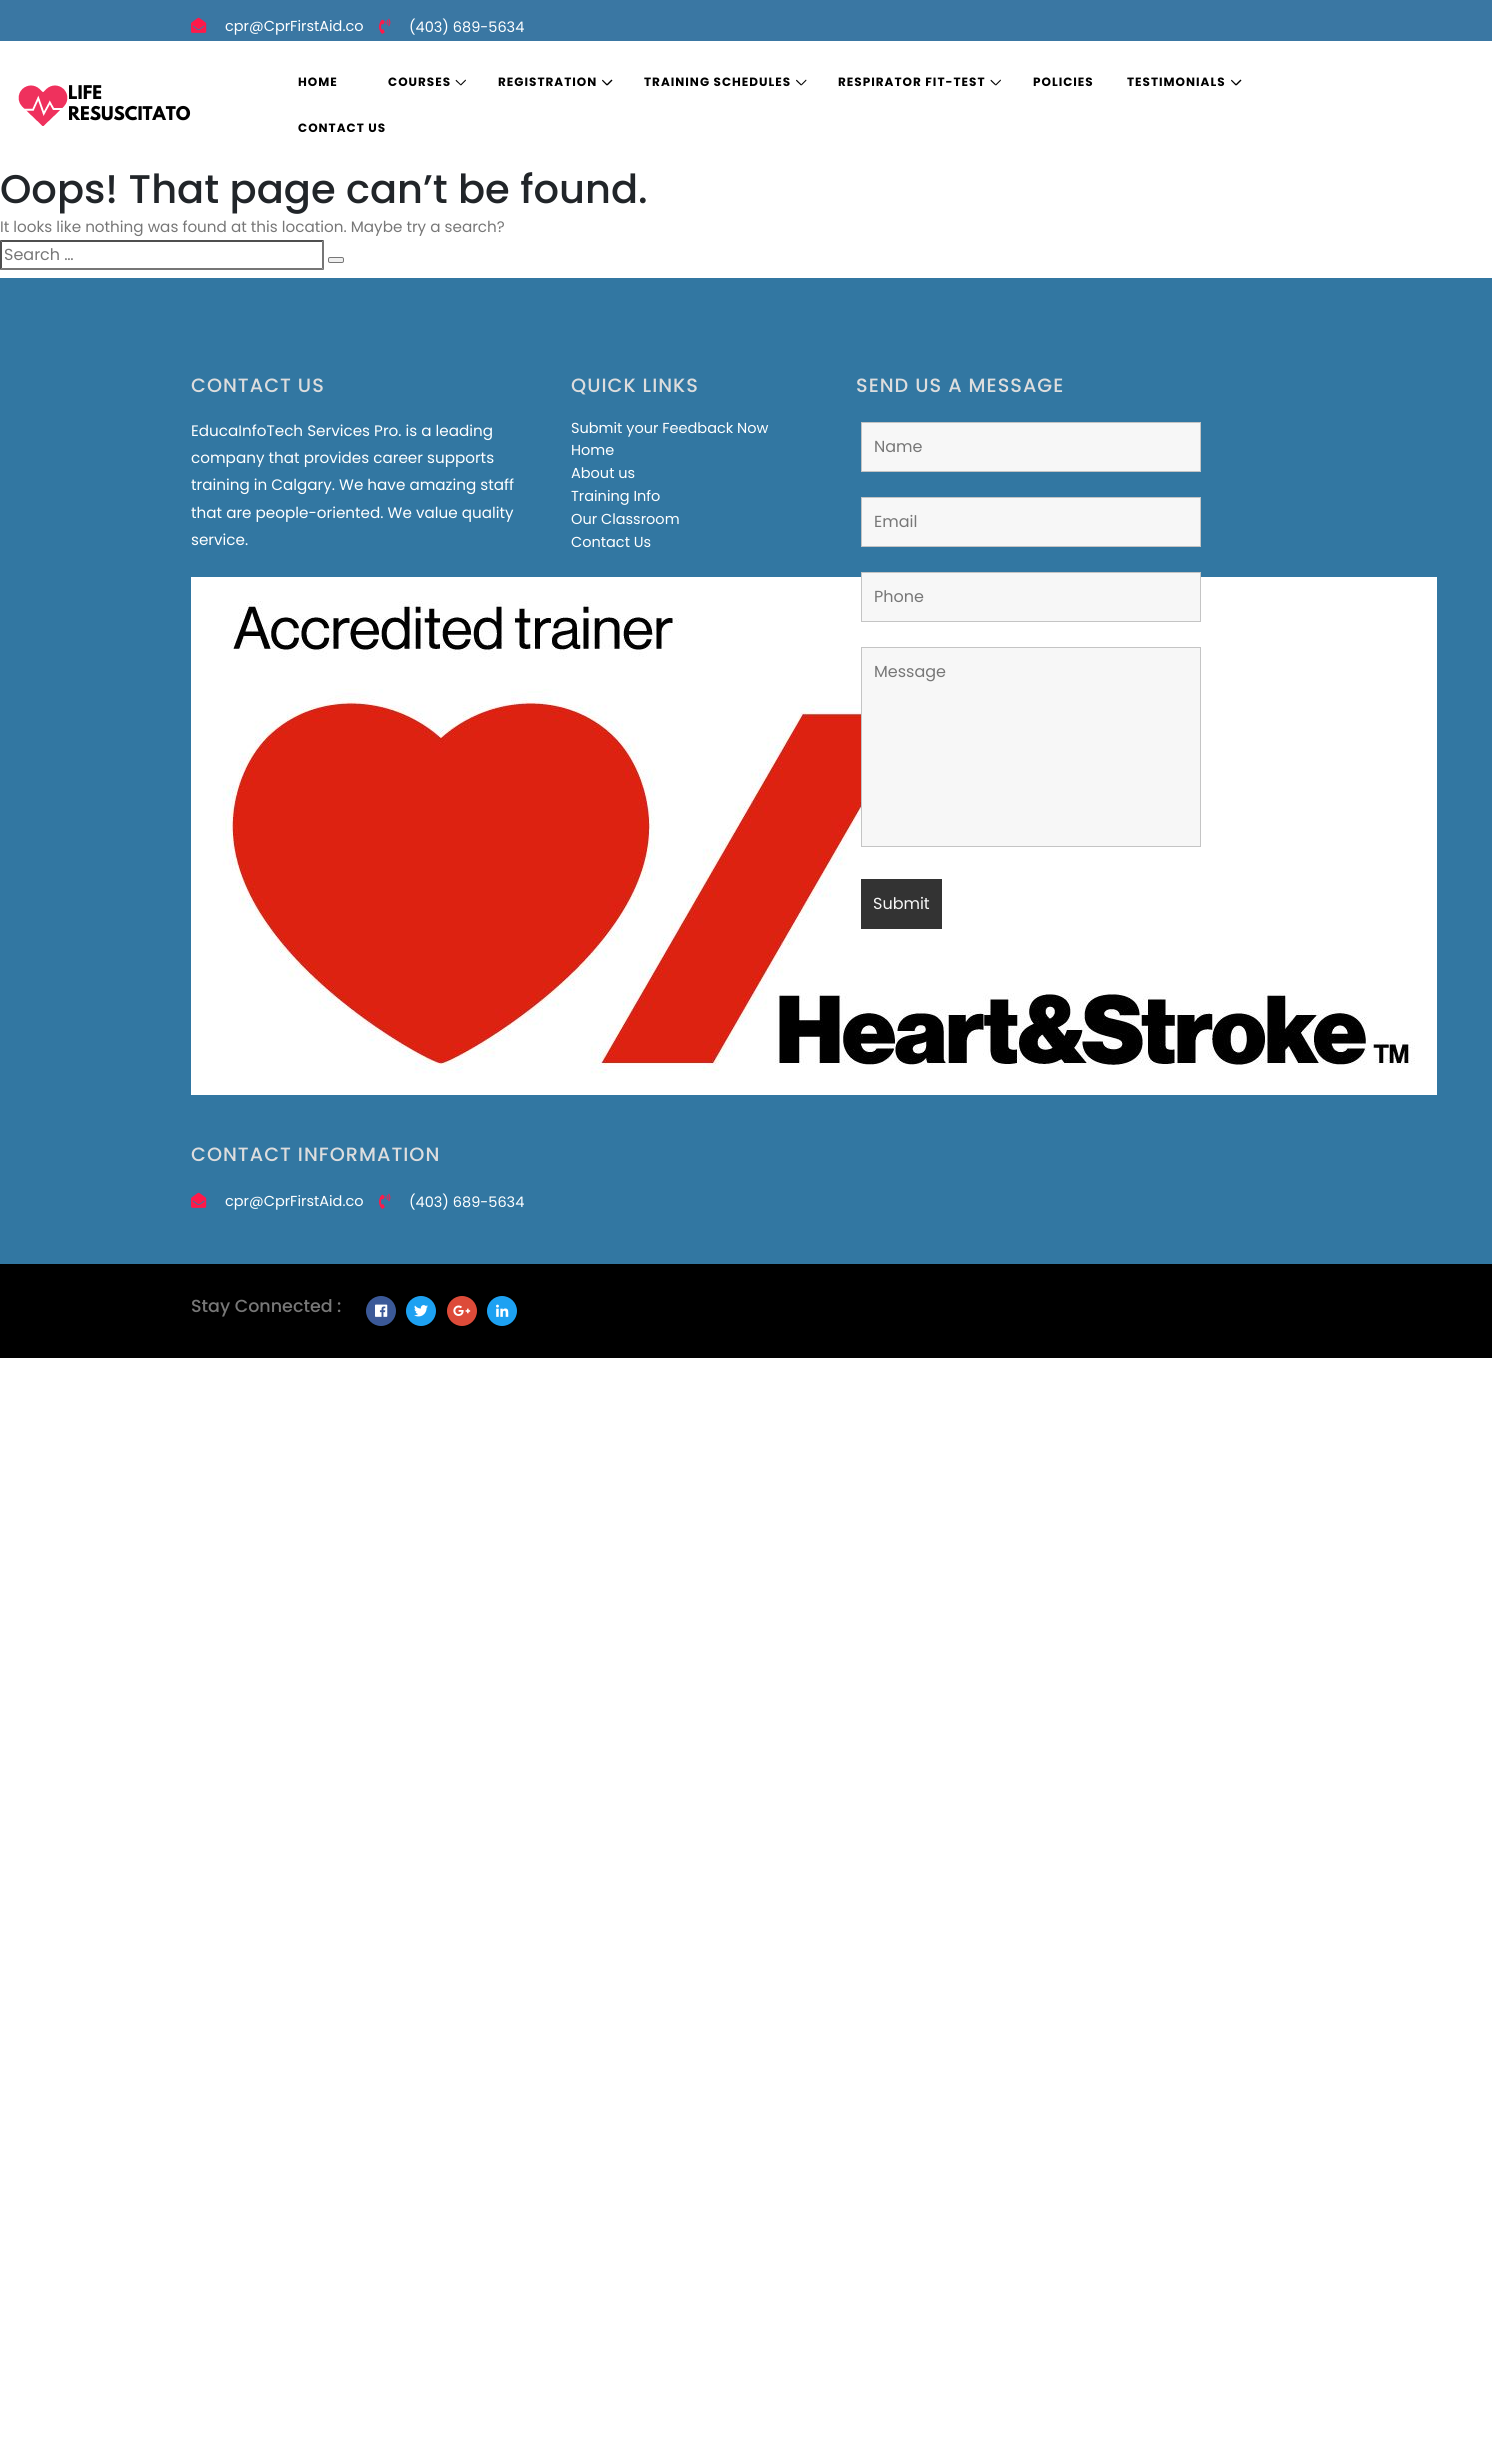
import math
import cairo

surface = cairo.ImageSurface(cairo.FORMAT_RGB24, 1492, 2463)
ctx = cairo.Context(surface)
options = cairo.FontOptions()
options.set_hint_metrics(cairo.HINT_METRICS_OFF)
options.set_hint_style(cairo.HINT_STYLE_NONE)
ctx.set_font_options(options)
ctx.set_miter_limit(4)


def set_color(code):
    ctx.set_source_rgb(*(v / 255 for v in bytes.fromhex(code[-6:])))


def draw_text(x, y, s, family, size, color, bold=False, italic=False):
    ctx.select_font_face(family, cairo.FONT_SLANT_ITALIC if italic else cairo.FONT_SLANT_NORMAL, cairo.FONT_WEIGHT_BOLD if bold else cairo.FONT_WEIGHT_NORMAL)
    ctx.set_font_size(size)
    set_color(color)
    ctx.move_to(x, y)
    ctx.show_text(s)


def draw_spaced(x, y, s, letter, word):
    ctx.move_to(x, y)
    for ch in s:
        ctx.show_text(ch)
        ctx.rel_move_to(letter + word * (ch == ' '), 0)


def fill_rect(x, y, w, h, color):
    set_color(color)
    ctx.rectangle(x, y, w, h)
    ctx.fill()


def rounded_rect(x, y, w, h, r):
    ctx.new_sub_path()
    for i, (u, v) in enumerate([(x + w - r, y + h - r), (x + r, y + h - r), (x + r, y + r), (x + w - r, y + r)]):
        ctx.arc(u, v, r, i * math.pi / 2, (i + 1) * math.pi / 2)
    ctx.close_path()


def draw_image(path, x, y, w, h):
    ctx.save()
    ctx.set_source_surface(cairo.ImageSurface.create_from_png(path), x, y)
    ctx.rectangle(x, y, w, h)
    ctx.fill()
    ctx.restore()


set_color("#ffffff")
ctx.paint()
fill_rect(0, 0, 1492, 41, "#3a77a3")
draw_image("assets/img1.png", 191, 17, 16, 16)
draw_text(225, 31, "cpr@CprFirstAid.co", "Poppins", 14.5, "#ffffff")
draw_image("assets/img2.png", 379, 18, 12, 16)
draw_text(409, 32, "(403) 689-5634", "Poppins", 14.5, "#ffffff")
draw_image("assets/img3.png", 18, 85, 173, 41)
ctx.select_font_face("Poppins", cairo.FONT_SLANT_NORMAL, cairo.FONT_WEIGHT_BOLD)
ctx.set_font_size(12)
set_color("#000000")
draw_spaced(298, 86, "HOME", 1, 0)
draw_spaced(388, 86, "COURSES", 1, 0)
ctx.new_path()
ctx.move_to(456.5, 80)
ctx.line_to(461, 84.5)
ctx.line_to(460.5, 85.5)
ctx.curve_to(460, 84.5, 455.5, 81, 455.5, 80.5)
ctx.curve_to(456, 80, 456.5, 79.5, 456.5, 80)
ctx.close_path()
ctx.fill()
ctx.new_path()
ctx.move_to(460.5, 84.5)
ctx.line_to(465.5, 79.5)
ctx.line_to(466, 80.5)
ctx.line_to(461, 85.5)
ctx.close_path()
ctx.fill()
draw_spaced(498, 86, "REGISTRATION", 1, 0)
ctx.new_path()
ctx.move_to(603, 80)
ctx.line_to(607.5, 84.5)
ctx.line_to(606.5, 85.5)
ctx.curve_to(606, 84.5, 602, 81, 602, 80.5)
ctx.curve_to(602, 80, 602.5, 79.5, 603, 80)
ctx.close_path()
ctx.fill()
ctx.new_path()
ctx.move_to(606.5, 84.5)
ctx.line_to(611.5, 79.5)
ctx.line_to(612.5, 80.5)
ctx.line_to(607.5, 85.5)
ctx.close_path()
ctx.fill()
draw_spaced(644, 86, "TRAINING SCHEDULES", 1, 0)
ctx.new_path()
ctx.move_to(797, 80)
ctx.line_to(801.5, 84.5)
ctx.line_to(801, 85.5)
ctx.curve_to(800, 84.5, 796, 81, 796, 80.5)
ctx.curve_to(796, 80, 796.5, 79.5, 797, 80)
ctx.close_path()
ctx.fill()
ctx.new_path()
ctx.move_to(801, 84.5)
ctx.line_to(806, 79.5)
ctx.line_to(806.5, 80.5)
ctx.line_to(801.5, 85.5)
ctx.close_path()
ctx.fill()
draw_spaced(838, 86, "RESPIRATOR FIT-TEST", 1, 0)
ctx.new_path()
ctx.move_to(991.5, 80)
ctx.line_to(996, 84.5)
ctx.line_to(995.5, 85.5)
ctx.curve_to(994.5, 84.5, 990.5, 81, 990.5, 80.5)
ctx.curve_to(990.5, 80, 991, 79.5, 991.5, 80)
ctx.close_path()
ctx.fill()
ctx.new_path()
ctx.move_to(995.5, 84.5)
ctx.line_to(1000.5, 79.5)
ctx.line_to(1001, 80.5)
ctx.line_to(996, 85.5)
ctx.close_path()
ctx.fill()
draw_spaced(1033, 86, "POLICIES", 1, 0)
draw_spaced(1127, 86, "TESTIMONIALS", 1, 0)
ctx.new_path()
ctx.move_to(1232, 80)
ctx.line_to(1236.5, 84.5)
ctx.line_to(1235.5, 85.5)
ctx.curve_to(1235, 84.5, 1231, 81, 1231, 80.5)
ctx.curve_to(1231, 80, 1231.5, 79.5, 1232, 80)
ctx.close_path()
ctx.fill()
ctx.new_path()
ctx.move_to(1235.5, 84.5)
ctx.line_to(1240.5, 79.5)
ctx.line_to(1241.5, 80.5)
ctx.line_to(1236.5, 85.5)
ctx.close_path()
ctx.fill()
draw_spaced(298, 132, "CONTACT US", 1, 0)
draw_text(0, 203, "Oops! That page can’t be found.", "Poppins Medium", 40, "#212529")
draw_text(0, 232, "It looks like nothing was found at this location. Maybe try a search?", "Poppins", 15.2, "#777777")
set_color("#4f4f4f")
ctx.new_path()
ctx.move_to(0, 240)
ctx.line_to(324, 240)
ctx.line_to(322, 242)
ctx.line_to(2, 242)
ctx.close_path()
ctx.fill()
set_color("#767676")
ctx.new_path()
ctx.move_to(324, 240)
ctx.line_to(324, 270)
ctx.line_to(322, 268)
ctx.line_to(322, 242)
ctx.close_path()
ctx.fill()
ctx.new_path()
ctx.move_to(324, 270)
ctx.line_to(0, 270)
ctx.line_to(2, 268)
ctx.line_to(322, 268)
ctx.close_path()
ctx.fill()
set_color("#4f4f4f")
ctx.new_path()
ctx.move_to(0, 270)
ctx.line_to(0, 240)
ctx.line_to(2, 242)
ctx.line_to(2, 268)
ctx.close_path()
ctx.fill()
draw_text(4, 260, "Search …", "Poppins", 16, "#777777")
set_color("#efefef")
rounded_rect(328.5, 257.5, 15, 5, 1.5)
ctx.fill_preserve()
set_color("#767676")
ctx.set_line_width(1)
ctx.stroke()
fill_rect(0, 278, 1492, 986, "#3277a2")
ctx.select_font_face("Poppins Medium")
ctx.set_font_size(19.25)
set_color("#dddddd")
draw_spaced(191, 392, "CONTACT US", 1, 0)
draw_text(191, 436, "EducaInfoTech Services Pro. is a leading", "Poppins", 15.2, "#ffffff")
draw_text(191, 463, "company that provides career supports", "Poppins", 15.2, "#ffffff")
draw_text(191, 490, "training in Calgary. We have amazing staff", "Poppins", 15.2, "#ffffff")
draw_text(191, 518, "that are people-oriented. We value quality", "Poppins", 15.2, "#ffffff")
draw_text(191, 545, "service.", "Poppins", 15.2, "#ffffff")
draw_image("assets/img4.png", 191, 577, 1246, 518)
ctx.select_font_face("Poppins Medium")
ctx.set_font_size(19.25)
set_color("#dddddd")
draw_spaced(191, 1161, "CONTACT INFORMATION", 1, 0)
draw_image("assets/img5.png", 191, 1192, 16, 16)
draw_text(225, 1206, "cpr@CprFirstAid.co", "Poppins", 14.5, "#ffffff")
draw_image("assets/img6.png", 379, 1193, 12, 16)
draw_text(409, 1207, "(403) 689-5634", "Poppins", 14.5, "#ffffff")
ctx.select_font_face("Poppins Medium")
ctx.set_font_size(19.25)
set_color("#dddddd")
draw_spaced(571, 392, "QUICK LINKS", 1, 0)
draw_text(571, 433, "Submit your Feedback Now", "Poppins", 14.5, "#ffffff")
draw_text(571, 455, "Home", "Poppins", 14.5, "#ffffff")
draw_text(571, 478, "About us", "Poppins", 14.5, "#ffffff")
draw_text(571, 501, "Training Info", "Poppins", 14.5, "#ffffff")
draw_text(571, 524, "Our Classroom", "Poppins", 14.5, "#ffffff")
draw_text(571, 547, "Contact Us", "Poppins", 14.5, "#ffffff")
ctx.select_font_face("Poppins Medium")
ctx.set_font_size(19.25)
set_color("#dddddd")
draw_spaced(856, 392, "SEND US A MESSAGE", 1, 0)
set_color("#f7f7f7")
ctx.rectangle(861.5, 422.5, 339, 49)
ctx.fill_preserve()
set_color("#c4c4c4")
ctx.stroke()
draw_text(874, 452, "Name", "Poppins", 16, "#777777")
set_color("#f7f7f7")
ctx.rectangle(861.5, 497.5, 339, 49)
ctx.fill_preserve()
set_color("#c4c4c4")
ctx.stroke()
draw_text(874, 527, "Email", "Poppins", 16, "#777777")
set_color("#f7f7f7")
ctx.rectangle(861.5, 572.5, 339, 49)
ctx.fill_preserve()
set_color("#c4c4c4")
ctx.stroke()
draw_text(874, 602, "Phone", "Poppins", 16, "#777777")
set_color("#f7f7f7")
ctx.rectangle(861.5, 647.5, 339, 199)
ctx.fill_preserve()
set_color("#c4c4c4")
ctx.stroke()
draw_text(874, 677, "Message", "Poppins", 16, "#777777")
fill_rect(861, 879, 81, 50, "#333333")
draw_text(873, 909, "Submit", "Poppins", 16, "#f7f7f7")
fill_rect(0, 1264, 1492, 94, "#000000")
draw_text(191, 1312, "Stay Connected :", "Poppins Medium", 17.5, "#777777")
set_color("#3b5998")
ctx.new_path()
ctx.arc(381, 1311, 15, 0, 2 * math.pi)
ctx.fill()
draw_image("assets/img7.png", 375, 1304, 13, 13)
set_color("#1da1f2")
ctx.arc(421, 1311, 15, 0, 2 * math.pi)
ctx.fill()
draw_image("assets/img8.png", 414, 1305, 14, 12)
set_color("#dd4b39")
ctx.arc(462, 1311, 15, 0, 2 * math.pi)
ctx.fill()
draw_image("assets/img9.png", 453, 1305, 18, 11)
set_color("#1da1f2")
ctx.arc(502, 1311, 15, 0, 2 * math.pi)
ctx.fill()
draw_image("assets/img10.png", 496, 1304, 13, 13)
surface.write_to_png("output.png")
